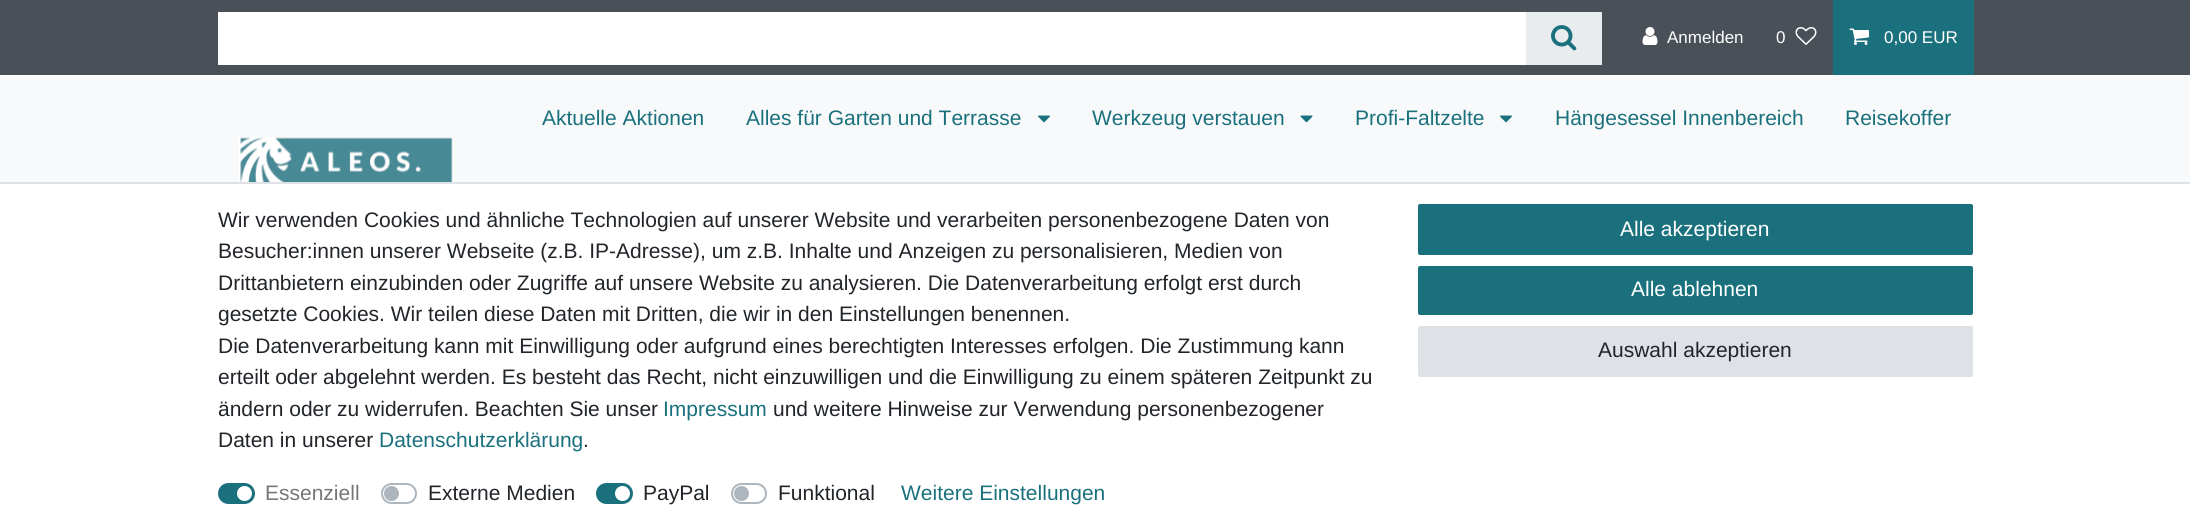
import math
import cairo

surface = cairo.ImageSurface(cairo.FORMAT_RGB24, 2190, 529)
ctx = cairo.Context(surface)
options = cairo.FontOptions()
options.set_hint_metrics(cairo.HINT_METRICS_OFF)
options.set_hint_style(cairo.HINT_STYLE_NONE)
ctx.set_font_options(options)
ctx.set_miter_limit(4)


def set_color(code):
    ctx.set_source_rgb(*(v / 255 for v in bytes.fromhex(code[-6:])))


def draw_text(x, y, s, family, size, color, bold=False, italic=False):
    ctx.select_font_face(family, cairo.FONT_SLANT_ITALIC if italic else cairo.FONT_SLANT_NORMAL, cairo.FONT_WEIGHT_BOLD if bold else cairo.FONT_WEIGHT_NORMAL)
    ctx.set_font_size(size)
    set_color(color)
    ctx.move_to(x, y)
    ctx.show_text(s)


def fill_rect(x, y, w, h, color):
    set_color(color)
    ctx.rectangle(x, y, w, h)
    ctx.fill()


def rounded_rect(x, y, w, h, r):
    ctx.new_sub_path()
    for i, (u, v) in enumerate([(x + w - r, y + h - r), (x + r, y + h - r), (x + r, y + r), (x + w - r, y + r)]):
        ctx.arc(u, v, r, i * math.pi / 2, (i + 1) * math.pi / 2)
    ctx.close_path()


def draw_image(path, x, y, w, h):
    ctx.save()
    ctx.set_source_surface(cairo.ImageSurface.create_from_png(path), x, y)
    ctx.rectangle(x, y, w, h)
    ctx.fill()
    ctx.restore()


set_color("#f8f9fa")
ctx.paint()
fill_rect(0, 0, 2190, 75, "#495057")
fill_rect(218, 12, 1308, 53, "#ffffff")
fill_rect(1526, 12, 76, 53, "#e9ecef")
draw_image("assets/img1.png", 1551, 25, 26, 26)
draw_image("assets/img2.png", 1642, 27, 16, 18)
draw_text(1667, 43, "Anmelden", "Liberation Sans", 17, "#ffffff")
draw_text(1776, 43, "0", "Liberation Sans", 17, "#ffffff")
draw_image("assets/img3.png", 1795, 27, 22, 18)
fill_rect(1833, 0, 141, 75, "#1a717d")
draw_image("assets/img4.png", 1849, 28, 20, 17)
draw_text(1884, 43, "0,00 EUR", "Liberation Sans", 17, "#ffffff")
draw_text(542, 125, "Aktuelle Aktionen", "Liberation Sans", 21, "#1a717d")
draw_text(746, 125, "Alles für Garten und Terrasse", "Liberation Sans", 21, "#1a717d")
draw_image("assets/img5.png", 1038, 115, 12, 8)
draw_text(1092, 125, "Werkzeug verstauen", "Liberation Sans", 21, "#1a717d")
draw_image("assets/img6.png", 1300, 115, 13, 8)
draw_text(1355, 125, "Profi-Faltzelte", "Liberation Sans", 21, "#1a717d")
draw_image("assets/img5.png", 1500, 115, 12, 8)
draw_text(1555, 125, "Hängesessel Innenbereich", "Liberation Sans", 21, "#1a717d")
draw_text(1845, 125, "Reisekoffer", "Liberation Sans", 21, "#1a717d")
draw_image("assets/img7.png", 239, 137, 215, 45)
fill_rect(0, 184, 2190, 345, "#ffffff")
fill_rect(0, 182, 2190, 2, "#dee2e6")
draw_text(218, 227, "Wir verwenden Cookies und ähnliche Technologien auf unserer Website und verarbeiten personenbezogene Daten von", "Liberation Sans", 21, "#212529")
draw_text(218, 258, "Besucher:innen unserer Webseite (z.B. IP-Adresse), um z.B. Inhalte und Anzeigen zu personalisieren, Medien von", "Liberation Sans", 21, "#212529")
draw_text(218, 290, "Drittanbietern einzubinden oder Zugriffe auf unsere Website zu analysieren. Die Datenverarbeitung erfolgt erst durch", "Liberation Sans", 21, "#212529")
draw_text(218, 321, "gesetzte Cookies. Wir teilen diese Daten mit Dritten, die wir in den Einstellungen benennen.", "Liberation Sans", 21, "#212529")
draw_text(218, 353, "Die Datenverarbeitung kann mit Einwilligung oder aufgrund eines berechtigten Interesses erfolgen. Die Zustimmung kann", "Liberation Sans", 21, "#212529")
draw_text(218, 384, "erteilt oder abgelehnt werden. Es besteht das Recht, nicht einzuwilligen und die Einwilligung zu einem späteren Zeitpunkt zu", "Liberation Sans", 21, "#212529")
draw_text(218, 416, "ändern oder zu widerrufen. Beachten Sie unser", "Liberation Sans", 21, "#212529")
draw_text(663, 416, "Impressum", "Liberation Sans", 21, "#1a717d")
draw_text(773, 416, "und weitere Hinweise zur Verwendung personenbezogener", "Liberation Sans", 21, "#212529")
draw_text(218, 447, "Daten in unserer", "Liberation Sans", 21, "#212529")
draw_text(379, 447, "Datenschutzerklärung", "Liberation Sans", 21, "#1a717d")
draw_text(583, 447, ".", "Liberation Sans", 21, "#212529")
set_color("#1a717d")
rounded_rect(219, 484, 35, 19, 9.5)
ctx.fill_preserve()
ctx.stroke()
draw_text(265, 500, "Essenziell", "Liberation Sans", 21, "#767676")
set_color("#ffffff")
ctx.new_path()
ctx.arc(244.5, 493.5, 7.5, 0, 2 * math.pi)
ctx.fill()
rounded_rect(382, 484, 34, 19, 9.5)
set_color("#adb5bd")
ctx.stroke()
draw_text(428, 500, "Externe Medien", "Liberation Sans", 21, "#212529")
set_color("#adb5bd")
ctx.new_path()
ctx.arc(391.5, 493.5, 7.5, 0, 2 * math.pi)
ctx.fill()
set_color("#1a717d")
rounded_rect(597, 484, 35, 19, 9.5)
ctx.fill_preserve()
ctx.stroke()
draw_text(643, 500, "PayPal", "Liberation Sans", 21, "#212529")
set_color("#ffffff")
ctx.new_path()
ctx.arc(622.5, 493.5, 7.5, 0, 2 * math.pi)
ctx.fill()
rounded_rect(732, 484, 34, 19, 9.5)
set_color("#adb5bd")
ctx.stroke()
draw_text(778, 500, "Funktional", "Liberation Sans", 21, "#212529")
set_color("#adb5bd")
ctx.new_path()
ctx.arc(741.5, 493.5, 7.5, 0, 2 * math.pi)
ctx.fill()
draw_text(901, 500, "Weitere Einstellungen", "Liberation Sans", 21, "#1a717d")
rounded_rect(1419, 205, 553, 49, 1)
ctx.fill_preserve()
ctx.stroke()
draw_text(1620, 236, "Alle akzeptieren", "Liberation Sans", 21, "#ffffff")
set_color("#1a717d")
rounded_rect(1419, 267, 553, 47, 1)
ctx.fill_preserve()
ctx.stroke()
draw_text(1631, 296, "Alle ablehnen", "Liberation Sans", 21, "#ffffff")
set_color("#dee2e6")
rounded_rect(1419, 327, 553, 49, 1)
ctx.fill_preserve()
ctx.stroke()
draw_text(1598, 357, "Auswahl akzeptieren", "Liberation Sans", 21, "#212529")
surface.write_to_png("output.png")
